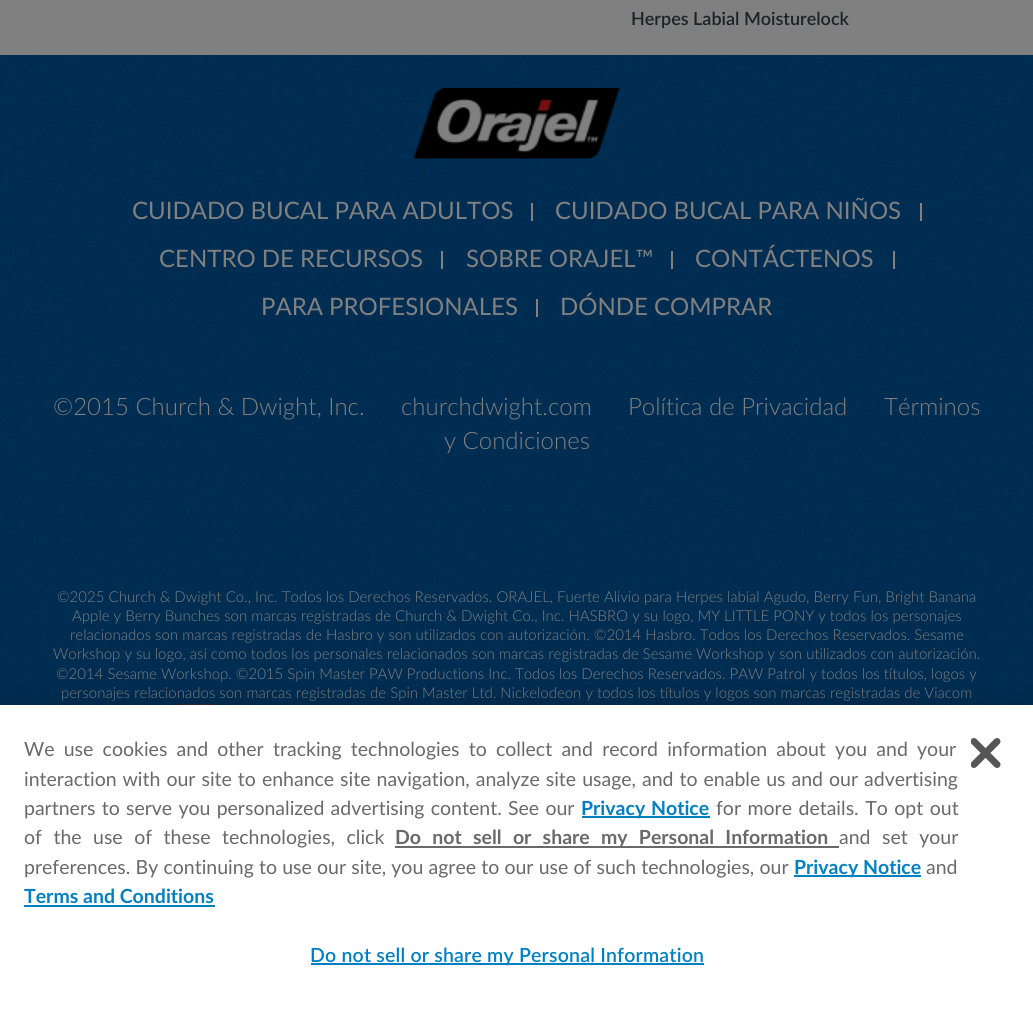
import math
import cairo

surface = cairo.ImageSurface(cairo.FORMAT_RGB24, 1033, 1009)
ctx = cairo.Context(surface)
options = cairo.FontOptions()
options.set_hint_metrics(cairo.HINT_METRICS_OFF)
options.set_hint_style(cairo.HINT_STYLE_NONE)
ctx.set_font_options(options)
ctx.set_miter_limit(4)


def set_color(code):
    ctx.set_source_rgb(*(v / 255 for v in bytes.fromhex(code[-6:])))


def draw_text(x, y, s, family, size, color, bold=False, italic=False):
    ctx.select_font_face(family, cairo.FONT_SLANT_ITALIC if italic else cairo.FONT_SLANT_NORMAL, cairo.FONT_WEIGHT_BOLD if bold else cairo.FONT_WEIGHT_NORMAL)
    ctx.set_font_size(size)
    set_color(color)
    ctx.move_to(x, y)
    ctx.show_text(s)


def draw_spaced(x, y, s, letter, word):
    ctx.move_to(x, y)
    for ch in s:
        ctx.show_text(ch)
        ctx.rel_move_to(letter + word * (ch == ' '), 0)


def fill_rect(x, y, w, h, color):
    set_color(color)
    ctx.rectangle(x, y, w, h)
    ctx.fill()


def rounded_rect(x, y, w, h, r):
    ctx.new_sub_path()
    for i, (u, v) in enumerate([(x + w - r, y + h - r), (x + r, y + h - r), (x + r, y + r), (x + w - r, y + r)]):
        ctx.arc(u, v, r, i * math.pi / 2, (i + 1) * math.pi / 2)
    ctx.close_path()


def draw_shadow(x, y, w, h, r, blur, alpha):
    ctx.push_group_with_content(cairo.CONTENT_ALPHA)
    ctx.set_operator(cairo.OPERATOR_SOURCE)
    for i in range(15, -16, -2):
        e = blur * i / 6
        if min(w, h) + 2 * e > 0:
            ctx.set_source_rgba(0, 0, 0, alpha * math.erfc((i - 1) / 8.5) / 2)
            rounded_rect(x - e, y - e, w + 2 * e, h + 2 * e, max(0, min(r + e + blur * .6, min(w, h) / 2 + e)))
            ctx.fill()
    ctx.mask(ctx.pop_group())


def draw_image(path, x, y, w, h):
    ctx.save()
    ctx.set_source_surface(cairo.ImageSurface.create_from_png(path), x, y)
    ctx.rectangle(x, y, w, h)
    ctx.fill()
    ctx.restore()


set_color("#808080")
ctx.paint()
draw_text(631, 25, "Herpes Labial Moisturelock", "Lato SemiBold", 18, "#1b2229")
draw_image("assets/img1.png", 0, 55, 1033, 650)
draw_image("assets/img2.png", 414, 88, 206, 71)
draw_text(132, 219, "CUIDADO BUCAL PARA ADULTOS", "Lato", 24, "#808080")
fill_rect(531, 203, 2, 18, "#808080")
draw_text(555, 219, "CUIDADO BUCAL PARA NIÑOS", "Lato", 24, "#808080")
fill_rect(920, 203, 2, 18, "#808080")
draw_text(159, 267, "CENTRO DE RECURSOS", "Lato", 24, "#808080")
fill_rect(441, 251, 2, 18, "#808080")
draw_text(466, 267, "SOBRE ORAJEL™", "Lato", 24, "#808080")
fill_rect(671, 251, 2, 18, "#808080")
draw_text(695, 267, "CONTÁCTENOS", "Lato", 24, "#808080")
fill_rect(893, 251, 2, 18, "#808080")
draw_text(261, 315, "PARA PROFESIONALES", "Lato", 24, "#808080")
fill_rect(536, 299, 2, 18, "#808080")
draw_text(560, 315, "DÓNDE COMPRAR", "Lato", 24, "#808080")
draw_text(53, 415, "©2015 Church & Dwight, Inc.", "Lato Light", 24, "#808080")
draw_text(401, 415, "churchdwight.com", "Lato Light", 24, "#808080")
draw_text(628, 415, "Política de Privacidad", "Lato Light", 24, "#808080")
draw_text(884, 415, "Términos", "Lato Light", 24, "#808080")
draw_text(444, 449, "y Condiciones", "Lato Light", 24, "#808080")
draw_text(57, 602, "©2025 Church & Dwight Co., Inc. Todos los Derechos Reservados. ORAJEL, Fuerte Alivio para Herpes labial Agudo, Berry Fun, Bright Banana", "Lato Light", 15, "#808080")
draw_text(72, 621, "Apple y Berry Bunches son marcas registradas de Church & Dwight Co., Inc. HASBRO y su logo, MY LITTLE PONY y todos los personajes", "Lato Light", 15, "#808080")
draw_text(70, 640, "relacionados son marcas registradas de Hasbro y son utilizados con autorización. ©2014 Hasbro. Todos los Derechos Reservados. Sesame", "Lato Light", 15, "#808080")
draw_text(53, 659, "Workshop y su logo, así como todos los personales relacionados son marcas registradas de Sesame Workshop y son utilizados con autorización.", "Lato Light", 15, "#808080")
draw_text(56, 679, "©2014 Sesame Workshop. ©2015 Spin Master PAW Productions Inc. Todos los Derechos Reservados. PAW Patrol y todos los títulos, logos y", "Lato Light", 15, "#808080")
draw_text(61, 698, "personajes relacionados son marcas registradas de Spin Master Ltd. Nickelodeon y todos los títulos y logos son marcas registradas de Viacom", "Lato Light", 15, "#808080")
draw_image("assets/img3.png", 176, 704, 41, 1)
set_color("#000000")
draw_shadow(0, 705, 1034, 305, 0, 13.5, 0.2)
fill_rect(0, 705, 1033, 304, "#ffffff")
ctx.select_font_face("Lato")
ctx.set_font_size(19.5)
set_color("#696969")
draw_spaced(24, 756, "We use cookies and other tracking technologies to collect and record information about you and your", 0, 4.25)
draw_spaced(24, 786, "interaction with our site to enhance site navigation, analyze site usage, and to enable us and our advertising", 0, 1)
draw_spaced(24, 815, "partners to serve you personalized advertising content. See our", 0, 1.25)
fill_rect(582, 816, 128, 2, "#0080c0")
ctx.select_font_face("Lato", cairo.FONT_SLANT_NORMAL, cairo.FONT_WEIGHT_BOLD)
draw_spaced(581, 815, "Privacy Notice", 0, 1)
ctx.select_font_face("Lato")
set_color("#696969")
draw_spaced(716, 815, "for more details. To opt out", 0, 1.5)
draw_spaced(24, 844, "of the use of these technologies, click", 0, 6.5)
fill_rect(395, 846, 444, 2, "#696969")
ctx.select_font_face("Lato", cairo.FONT_SLANT_NORMAL, cairo.FONT_WEIGHT_BOLD)
draw_spaced(395, 844, "Do not sell or share my Personal Information", 0, 6.5)
ctx.select_font_face("Lato")
draw_spaced(839, 844, "and set your", 0, 6.5)
draw_spaced(24, 874, "preferences. By continuing to use our site, you agree to our use of such technologies, our", 0, 0.2)
fill_rect(794, 875, 127, 2, "#0080c0")
draw_text(794, 874, "Privacy Notice", "Lato", 19.5, "#0080c0", bold=True)
draw_text(926, 874, "and", "Lato", 19.5, "#696969")
draw_text(24, 903, "Terms and Conditions", "Lato", 19.5, "#0080c0", bold=True)
fill_rect(24, 905, 191, 2, "#0080c0")
fill_rect(311, 963, 393, 2, "#0080c0")
ctx.select_font_face("Lato SemiBold")
draw_spaced(310, 962, "Do not sell or share my Personal Information", 0.2, 0)
draw_image("assets/img4.png", 971, 738, 30, 30)
surface.write_to_png("output.png")
